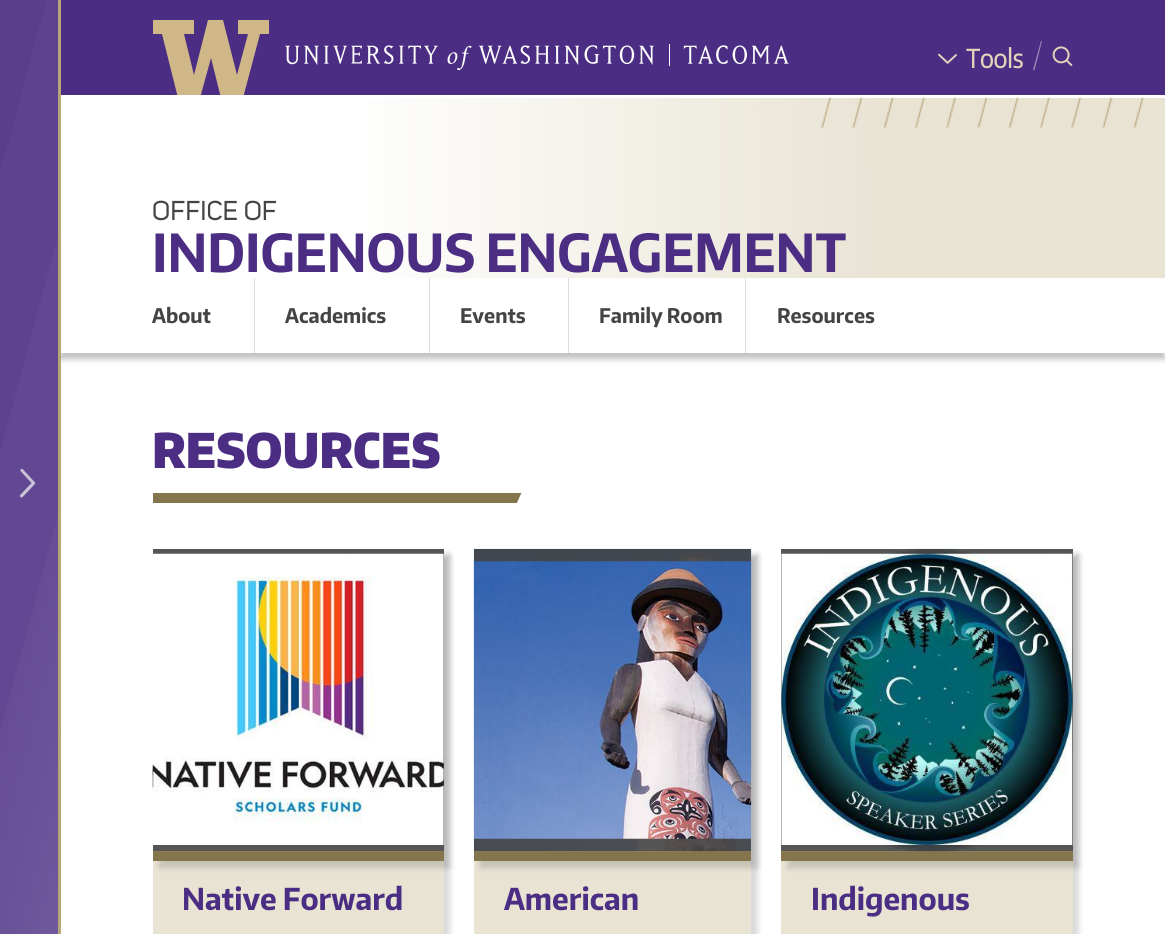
import math
import cairo

surface = cairo.ImageSurface(cairo.FORMAT_RGB24, 1165, 934)
ctx = cairo.Context(surface)
options = cairo.FontOptions()
options.set_hint_metrics(cairo.HINT_METRICS_OFF)
options.set_hint_style(cairo.HINT_STYLE_NONE)
ctx.set_font_options(options)
ctx.set_miter_limit(4)


def set_color(code):
    ctx.set_source_rgb(*(v / 255 for v in bytes.fromhex(code[-6:])))


def draw_text(x, y, s, family, size, color, bold=False, italic=False):
    ctx.select_font_face(family, cairo.FONT_SLANT_ITALIC if italic else cairo.FONT_SLANT_NORMAL, cairo.FONT_WEIGHT_BOLD if bold else cairo.FONT_WEIGHT_NORMAL)
    ctx.set_font_size(size)
    set_color(color)
    ctx.move_to(x, y)
    ctx.show_text(s)


def fill_rect(x, y, w, h, color):
    set_color(color)
    ctx.rectangle(x, y, w, h)
    ctx.fill()


def rounded_rect(x, y, w, h, r):
    ctx.new_sub_path()
    for i, (u, v) in enumerate([(x + w - r, y + h - r), (x + r, y + h - r), (x + r, y + r), (x + w - r, y + r)]):
        ctx.arc(u, v, r, i * math.pi / 2, (i + 1) * math.pi / 2)
    ctx.close_path()


def draw_shadow(x, y, w, h, r, blur, alpha):
    ctx.push_group_with_content(cairo.CONTENT_ALPHA)
    ctx.set_operator(cairo.OPERATOR_SOURCE)
    for i in range(15, -16, -2):
        e = blur * i / 6
        if min(w, h) + 2 * e > 0:
            ctx.set_source_rgba(0, 0, 0, alpha * math.erfc((i - 1) / 8.5) / 2)
            rounded_rect(x - e, y - e, w + 2 * e, h + 2 * e, max(0, min(r + e + blur * .6, min(w, h) / 2 + e)))
            ctx.fill()
    ctx.mask(ctx.pop_group())


def draw_image(path, x, y, w, h):
    ctx.save()
    ctx.set_source_surface(cairo.ImageSurface.create_from_png(path), x, y)
    ctx.rectangle(x, y, w, h)
    ctx.fill()
    ctx.restore()


set_color("#ffffff")
ctx.paint()
gradient = cairo.LinearGradient(60, 188, 1165, 187)
gradient.add_color_stop_rgba(0.25, 1, 1, 1, 1)
gradient.add_color_stop_rgba(0.75, 0.91, 0.89, 0.827, 1)
ctx.set_source(gradient)
ctx.rectangle(368, 98, 797, 180)
ctx.fill()
set_color("#000000")
draw_shadow(60, 284, 1105, 75, 0, 3, 0.25)
fill_rect(58, 0, 3, 934, "#b7a57a")
gradient = cairo.LinearGradient(-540, 374, 158, 561)
gradient.add_color_stop_rgba(0, 0.294, 0.18, 0.514, 1)
gradient.add_color_stop_rgba(0.45, 0.294, 0.18, 0.514, 1)
gradient.add_color_stop_rgba(0.45, 0.31, 0.2, 0.525, 1)
gradient.add_color_stop_rgba(0.55, 0.31, 0.2, 0.525, 1)
gradient.add_color_stop_rgba(0.55, 0.349, 0.243, 0.549, 1)
gradient.add_color_stop_rgba(0.65, 0.349, 0.243, 0.549, 1)
gradient.add_color_stop_rgba(0.65, 0.365, 0.263, 0.561, 1)
gradient.add_color_stop_rgba(0.75, 0.365, 0.263, 0.561, 1)
gradient.add_color_stop_rgba(0.75, 0.384, 0.282, 0.576, 1)
gradient.add_color_stop_rgba(0.85, 0.384, 0.282, 0.576, 1)
gradient.add_color_stop_rgba(0.85, 0.4, 0.302, 0.588, 1)
gradient.add_color_stop_rgba(1, 0.435, 0.345, 0.612, 1)
ctx.set_source(gradient)
ctx.rectangle(0, 0, 58, 934)
ctx.fill()
draw_image("assets/img1.png", 19, 468, 17, 30)
fill_rect(61, 0, 1104, 95, "#4b2e83")
ctx.save()
ctx.rectangle(153, 20, 116, 75)
ctx.clip()
set_color("#d0b787")
ctx.new_path()
ctx.move_to(238, 20)
ctx.line_to(238, 34)
ctx.line_to(248, 34)
ctx.line_to(237, 75)
ctx.line_to(223, 20)
ctx.line_to(208, 20)
ctx.line_to(194, 75)
ctx.line_to(184, 34)
ctx.line_to(194, 34)
ctx.line_to(194, 20)
ctx.line_to(152, 20)
ctx.line_to(152, 34)
ctx.line_to(162, 34)
ctx.line_to(178, 98)
ctx.line_to(200, 98)
ctx.line_to(211, 58)
ctx.line_to(221, 98)
ctx.line_to(243, 98)
ctx.line_to(260, 34)
ctx.line_to(269, 34)
ctx.line_to(269, 20)
ctx.close_path()
ctx.fill()
ctx.restore()
draw_image("assets/img2.png", 285, 44, 504, 27)
draw_image("assets/img3.png", 938, 53, 19, 11)
draw_text(966, 68, "Tools", "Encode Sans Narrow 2", 25, "#e4d4b9", bold=True)
set_color("#9d8eb9")
ctx.new_path()
ctx.move_to(1041, 41)
ctx.line_to(1042, 41)
ctx.line_to(1034.5, 70)
ctx.line_to(1033, 70)
ctx.close_path()
ctx.fill()
draw_image("assets/img4.png", 1052, 46, 21, 20)
draw_image("assets/img5.png", 800, 97, 365, 31)
draw_text(152, 220, "OFFICE OF", "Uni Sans", 27, "#444444")
draw_text(152, 272, "INDIGENOUS ENGAGEMENT", "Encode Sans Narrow", 52, "#4b2e83", bold=True)
fill_rect(61, 279, 1104, 74, "#ffffff")
draw_text(152, 323, "About", "Encode Sans Narrow", 20, "#444444", bold=True)
fill_rect(254, 278, 1, 75, "#dddddd")
draw_text(285, 323, "Academics", "Encode Sans Narrow", 20, "#444444", bold=True)
fill_rect(429, 278, 1, 75, "#dddddd")
draw_text(460, 323, "Events", "Encode Sans Narrow", 20, "#444444", bold=True)
fill_rect(568, 278, 1, 75, "#dddddd")
draw_text(599, 323, "Family Room", "Encode Sans Narrow", 20, "#444444", bold=True)
fill_rect(745, 278, 1, 75, "#dddddd")
draw_text(777, 323, "Resources", "Encode Sans Narrow", 20, "#444444", bold=True)
draw_text(152, 468, "RESOURCES", "Encode Sans Narrow Black", 47.5, "#4b2e83")
fill_rect(153, 493, 369, 10, "#85754d")
ctx.save()
ctx.rectangle(153, 414, 920, 94)
ctx.clip()
set_color("#ffffff")
ctx.new_path()
ctx.move_to(526, 483)
ctx.line_to(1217, 483)
ctx.line_to(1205, 507)
ctx.line_to(515, 507)
ctx.close_path()
ctx.fill()
ctx.restore()
set_color("#000000")
draw_shadow(159, 555, 291, 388, 0, 3, 0.15)
fill_rect(153, 861, 291, 73, "#e8e3d3")
set_color("#000000")
draw_shadow(159, 555, 291, 313, 0, 3, 0.15)
fill_rect(443, 549, 1, 302, "#e8e3d3")
fill_rect(153, 851, 291, 10, "#85754d")
draw_image("assets/img6.png", 152, 549, 292, 303)
ctx.set_source_rgba(0.267, 0.267, 0.267, 0.9)
ctx.rectangle(153, 549, 291, 302)
ctx.fill()
draw_image("assets/img7.png", 152, 553, 292, 292)
draw_text(182, 910, "Native Forward", "Encode Sans Narrow", 30, "#4b2e83", bold=True)
set_color("#000000")
draw_shadow(480, 555, 278, 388, 0, 3, 0.15)
fill_rect(474, 861, 277, 73, "#e8e3d3")
set_color("#000000")
draw_shadow(480, 555, 278, 313, 0, 3, 0.15)
fill_rect(474, 851, 277, 10, "#85754d")
draw_image("assets/img8.png", 473, 548, 279, 304)
draw_image("assets/img9.png", 473, 561, 279, 278)
draw_text(504, 910, "American", "Encode Sans Narrow", 30, "#4b2e83", bold=True)
set_color("#000000")
draw_shadow(788, 555, 291, 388, 0, 3, 0.15)
fill_rect(781, 861, 292, 73, "#e8e3d3")
set_color("#000000")
draw_shadow(788, 555, 291, 313, 0, 3, 0.15)
fill_rect(781, 549, 292, 302, "#e8e3d3")
fill_rect(781, 851, 292, 10, "#85754d")
draw_image("assets/img10.png", 781, 548, 292, 304)
ctx.set_source_rgba(0.267, 0.267, 0.267, 0.9)
ctx.rectangle(781, 549, 292, 302)
ctx.fill()
draw_image("assets/img11.png", 781, 553, 292, 292)
draw_text(811, 910, "Indigenous", "Encode Sans Narrow", 30, "#4b2e83", bold=True)
surface.write_to_png("output.png")
